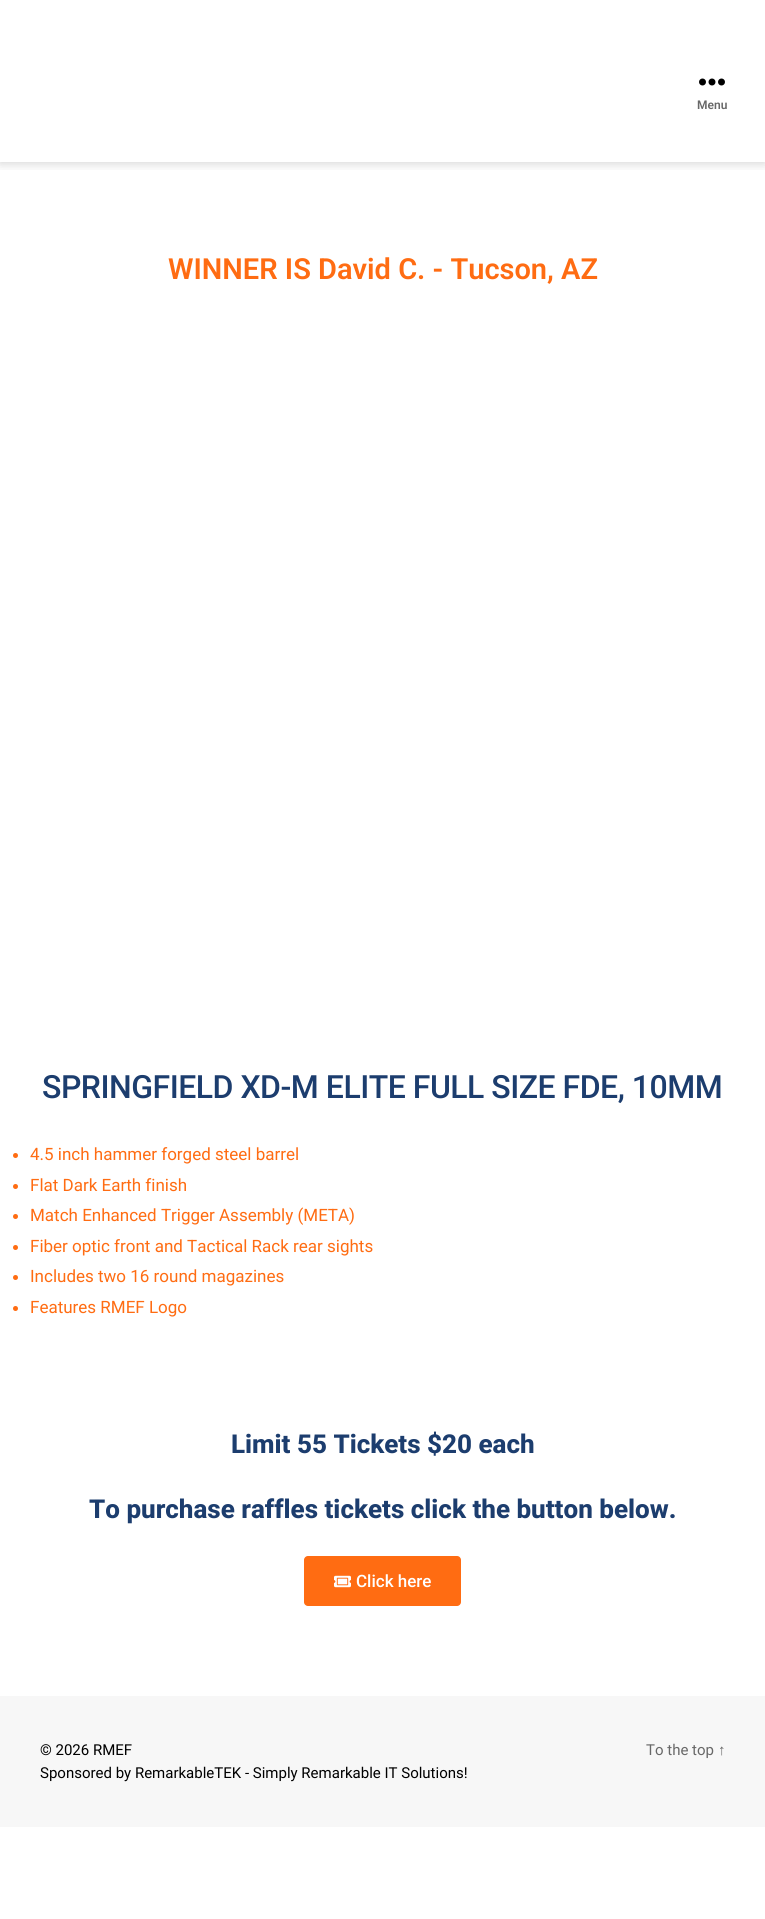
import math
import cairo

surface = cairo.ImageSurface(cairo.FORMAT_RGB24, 765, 1919)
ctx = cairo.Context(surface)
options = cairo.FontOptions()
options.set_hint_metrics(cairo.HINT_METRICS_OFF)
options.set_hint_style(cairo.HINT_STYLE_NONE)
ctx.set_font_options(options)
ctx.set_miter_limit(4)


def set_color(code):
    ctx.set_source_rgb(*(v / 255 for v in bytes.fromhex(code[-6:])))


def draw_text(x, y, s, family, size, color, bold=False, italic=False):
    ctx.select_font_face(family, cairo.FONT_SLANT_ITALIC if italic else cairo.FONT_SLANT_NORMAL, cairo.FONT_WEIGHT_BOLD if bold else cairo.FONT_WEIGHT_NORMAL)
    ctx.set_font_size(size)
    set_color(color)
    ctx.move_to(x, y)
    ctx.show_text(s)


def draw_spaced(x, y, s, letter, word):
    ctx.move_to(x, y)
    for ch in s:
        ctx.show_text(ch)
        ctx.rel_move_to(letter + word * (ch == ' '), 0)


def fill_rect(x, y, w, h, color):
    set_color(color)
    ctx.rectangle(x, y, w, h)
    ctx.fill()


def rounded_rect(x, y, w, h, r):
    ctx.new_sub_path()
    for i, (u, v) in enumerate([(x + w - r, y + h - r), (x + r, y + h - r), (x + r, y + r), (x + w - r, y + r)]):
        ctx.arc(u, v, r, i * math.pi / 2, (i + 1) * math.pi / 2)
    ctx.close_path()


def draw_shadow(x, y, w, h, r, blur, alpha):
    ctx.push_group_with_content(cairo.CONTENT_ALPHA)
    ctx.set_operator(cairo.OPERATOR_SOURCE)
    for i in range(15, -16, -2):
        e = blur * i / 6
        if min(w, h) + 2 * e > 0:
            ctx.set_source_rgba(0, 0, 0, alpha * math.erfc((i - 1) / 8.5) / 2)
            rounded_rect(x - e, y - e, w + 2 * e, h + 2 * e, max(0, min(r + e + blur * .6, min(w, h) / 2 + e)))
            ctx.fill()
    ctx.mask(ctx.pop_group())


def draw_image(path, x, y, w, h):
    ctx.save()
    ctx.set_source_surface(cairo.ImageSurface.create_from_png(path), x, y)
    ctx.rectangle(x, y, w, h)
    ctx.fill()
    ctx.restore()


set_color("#ffffff")
ctx.paint()
ctx.save()
ctx.rectangle(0, 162, 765, 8)
ctx.clip()
set_color("#000000")
draw_shadow(0, 2, 765, 162, 0, 5, 0.16)
ctx.restore()
draw_image("assets/img1.png", 699, 78, 26, 8)
draw_text(697, 109, "Menu", "Roboto SemiBold", 12, "#686868")
draw_text(168, 279, "WINNER IS David C. - Tucson, AZ", "Roboto SemiBold", 29, "#ff6c12")
ctx.select_font_face("Roboto Medium")
ctx.set_font_size(32)
set_color("#1c3d6e")
draw_spaced(42, 1098, "SPRINGFIELD XD-M ELITE FULL SIZE FDE, 10MM", -0.5, 0)
set_color("#ff6c12")
ctx.new_path()
ctx.arc(15.5, 1155.5, 2.5, 0, 2 * math.pi)
ctx.fill()
draw_text(30, 1160, "4.5 inch hammer forged steel barrel", "Roboto", 17, "#ff6c12")
ctx.new_path()
ctx.arc(15.5, 1186.5, 2.5, 0, 2 * math.pi)
ctx.fill()
draw_text(30, 1191, "Flat Dark Earth finish", "Roboto", 17, "#ff6c12")
ctx.new_path()
ctx.arc(15.5, 1216.5, 2.5, 0, 2 * math.pi)
ctx.fill()
draw_text(30, 1221, "Match Enhanced Trigger Assembly (META)", "Roboto", 17, "#ff6c12")
ctx.new_path()
ctx.arc(15.5, 1247.5, 2.5, 0, 2 * math.pi)
ctx.fill()
draw_text(30, 1252, "Fiber optic front and Tactical Rack rear sights", "Roboto", 17, "#ff6c12")
ctx.new_path()
ctx.arc(15.5, 1277.5, 2.5, 0, 2 * math.pi)
ctx.fill()
draw_text(30, 1282, "Includes two 16 round magazines", "Roboto", 17, "#ff6c12")
ctx.new_path()
ctx.arc(15.5, 1308.5, 2.5, 0, 2 * math.pi)
ctx.fill()
draw_text(30, 1313, "Features RMEF Logo", "Roboto", 17, "#ff6c12")
draw_text(231, 1453, "Limit 55 Tickets $20 each", "Roboto ExtraBold", 26, "#1c3d6e")
draw_text(89, 1518, "To purchase raffles tickets click the button below.", "Roboto ExtraBold", 26, "#1c3d6e")
set_color("#ff6c12")
rounded_rect(304, 1556, 157, 50, 4)
ctx.fill()
draw_image("assets/img2.png", 334, 1575, 17, 13)
draw_text(356, 1587, "Click here", "Roboto Medium", 17, "#ffffff")
fill_rect(0, 1696, 765, 131, "#f7f7f7")
draw_text(40, 1755, "© 2026 RMEF", "Roboto", 15, "#000000")
draw_text(40, 1778, "Sponsored by RemarkableTEK - Simply Remarkable IT Solutions!", "Roboto", 15, "#000000")
draw_text(646, 1755, "To the top", "Roboto", 15, "#686868")
draw_text(718, 1755, "↑", "Liberation Sans", 15, "#686868")
surface.write_to_png("output.png")
